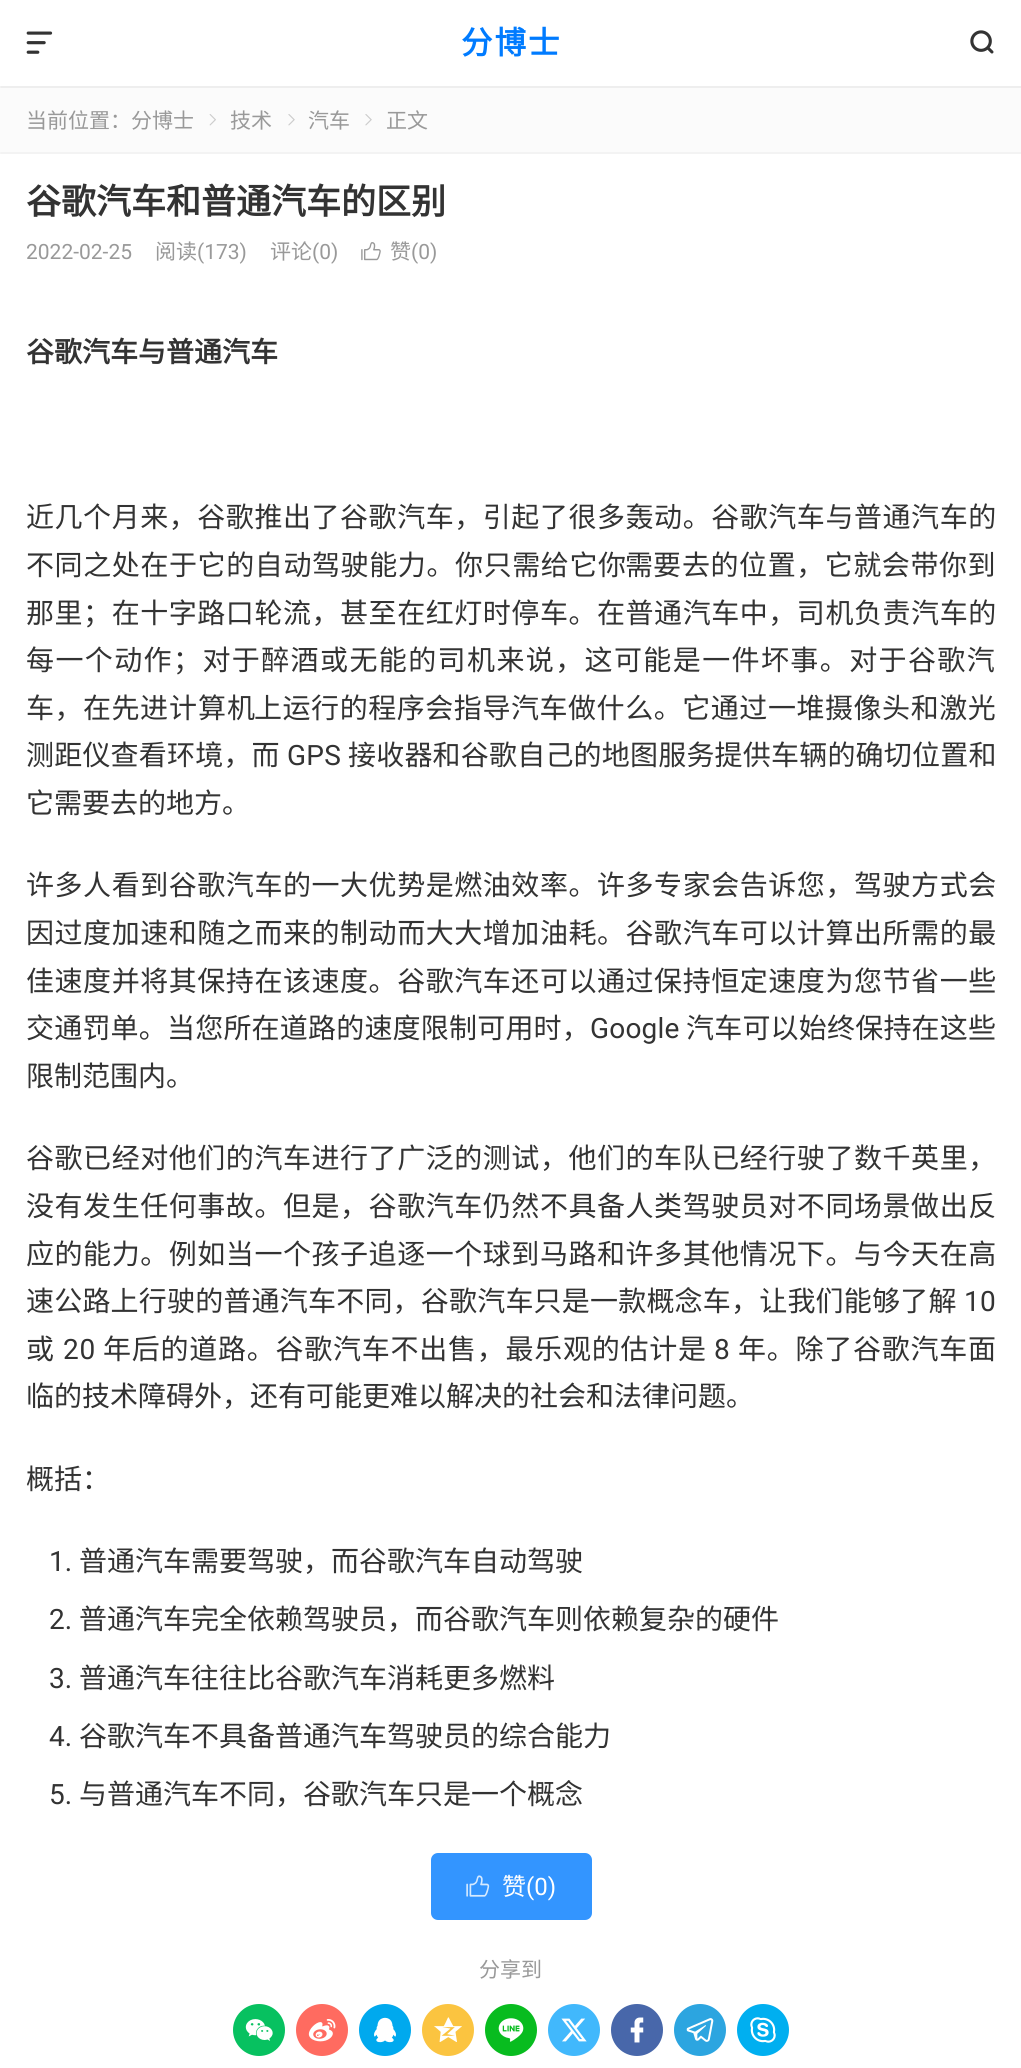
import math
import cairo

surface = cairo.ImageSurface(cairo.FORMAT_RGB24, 1021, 2068)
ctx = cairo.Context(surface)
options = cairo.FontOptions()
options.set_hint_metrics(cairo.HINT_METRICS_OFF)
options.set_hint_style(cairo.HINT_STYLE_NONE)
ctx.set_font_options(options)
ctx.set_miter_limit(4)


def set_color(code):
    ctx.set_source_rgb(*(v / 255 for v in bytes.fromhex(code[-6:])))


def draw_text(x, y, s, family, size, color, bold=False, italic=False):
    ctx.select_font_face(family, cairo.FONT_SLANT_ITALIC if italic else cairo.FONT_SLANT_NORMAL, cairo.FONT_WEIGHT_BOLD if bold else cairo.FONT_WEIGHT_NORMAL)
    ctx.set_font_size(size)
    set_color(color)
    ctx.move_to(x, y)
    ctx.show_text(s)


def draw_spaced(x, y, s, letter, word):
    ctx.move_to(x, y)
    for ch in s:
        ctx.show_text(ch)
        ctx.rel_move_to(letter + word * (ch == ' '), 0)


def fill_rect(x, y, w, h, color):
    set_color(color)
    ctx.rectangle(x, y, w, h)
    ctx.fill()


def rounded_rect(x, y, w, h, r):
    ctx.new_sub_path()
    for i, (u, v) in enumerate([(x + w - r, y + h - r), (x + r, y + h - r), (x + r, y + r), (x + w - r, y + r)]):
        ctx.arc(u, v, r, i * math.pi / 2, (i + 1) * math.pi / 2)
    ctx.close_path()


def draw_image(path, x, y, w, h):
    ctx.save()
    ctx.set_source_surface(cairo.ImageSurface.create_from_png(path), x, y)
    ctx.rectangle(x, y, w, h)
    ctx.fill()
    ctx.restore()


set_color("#fbfbfb")
ctx.paint()
fill_rect(0, 0, 1021, 88, "#ffffff")
draw_image("assets/img1.png", 26, 31, 27, 23)
ctx.select_font_face("Noto Sans CJK SC", cairo.FONT_SLANT_NORMAL, cairo.FONT_WEIGHT_BOLD)
ctx.set_font_size(31.5)
set_color("#007bff")
draw_spaced(461, 54, "分博士", 2, 0)
draw_image("assets/img2.png", 970, 30, 24, 24)
set_color("#eeeeee")
rounded_rect(0, 86, 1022, 2, 1)
ctx.fill()
draw_text(26, 128, "当前位置：分博士", "Noto Sans CJK SC", 21, "#999999")
draw_image("assets/img3.png", 209, 114, 7, 12)
draw_text(230, 128, "技术", "Noto Sans CJK SC", 21, "#999999")
draw_image("assets/img4.png", 288, 114, 7, 12)
draw_text(308, 128, "汽车", "Noto Sans CJK SC", 21, "#999999")
draw_image("assets/img4.png", 365, 114, 7, 12)
draw_text(386, 128, "正文", "Noto Sans CJK SC", 21, "#999999")
set_color("#f3f3f3")
rounded_rect(0, 152, 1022, 2, 1)
ctx.fill()
fill_rect(0, 154, 1021, 1914, "#ffffff")
draw_text(26, 214, "谷歌汽车和普通汽车的区别", "Noto Sans CJK SC", 35, "#333333", bold=True)
draw_text(26, 259, "2022-02-25", "Roboto", 21, "#999999")
draw_text(155, 259, "阅读", "Noto Sans CJK SC", 21, "#999999")
draw_text(197, 259, "(173)", "Roboto", 21, "#999999")
draw_text(270, 259, "评论", "Noto Sans CJK SC", 21, "#999999")
draw_text(312, 259, "(0)", "Roboto", 21, "#999999")
draw_image("assets/img5.png", 361, 242, 20, 19)
draw_text(390, 259, "赞", "Noto Sans CJK SC", 21, "#999999")
draw_text(411, 259, "(0)", "Roboto", 21, "#999999")
draw_text(26, 362, "谷歌汽车与普通汽车", "Noto Sans CJK SC", 28, "#333333", bold=True)
ctx.select_font_face("Noto Sans CJK SC")
draw_spaced(26, 527, "近几个月来，谷歌推出了谷歌汽车，引起了很多轰动。谷歌汽车与普通汽车的", 0.55, 0)
draw_spaced(26, 575, "不同之处在于它的自动驾驶能力。你只需给它你", 0.6, 0)
draw_text(625, 575, "需要", "Noto Sans CJK SC", 28, "#333333")
draw_spaced(682, 575, "去的位置，它就会带你到", 0.55, 0)
draw_spaced(26, 623, "那里；在十字路口轮流，甚至在红灯时停车。在普通汽车中，司机负责汽车的", 0.55, 0)
draw_spaced(26, 670, "每一个动作；对于醉酒或无能的司机来说，这可能是一件坏事。对于谷歌汽", 1.4, 0)
draw_spaced(26, 718, "车，在先进", 0.5, 0)
draw_spaced(169, 718, "计算机", 1, 0)
draw_spaced(254, 718, "上运行的程序会指导汽车做什么。它通过一堆摄像头和激光", 0.55, 0)
draw_spaced(26, 765, "测距仪查看环境，而", 0.2, 0)
ctx.select_font_face("Roboto")
draw_spaced(287, 765, "GPS", 0.2, 0)
ctx.select_font_face("Noto Sans CJK SC")
draw_spaced(348, 765, "接收器和谷歌自己的地图服务提供车辆的确切位置和", 0.2, 0)
draw_text(26, 813, "它需要去的地方。", "Noto Sans CJK SC", 28, "#333333")
draw_spaced(26, 895, "许多人看到谷歌汽车的一大优势是燃油效率。许多专家会告诉您，驾驶方式会", 0.55, 0)
draw_spaced(26, 943, "因过度加速和随之而来的制动而大大增加油耗。谷歌汽车可以计算出所需的最", 0.55, 0)
draw_spaced(26, 991, "佳速度并将其保持在该速度。谷歌汽车还可以通过保持恒定速度为您节省一些", 0.55, 0)
draw_spaced(26, 1038, "交通罚单。当您所在道路的速度限制可用时，", 0.2, 0)
ctx.select_font_face("Roboto")
draw_spaced(590, 1038, "Google", 0.2, 0)
ctx.select_font_face("Noto Sans CJK SC")
draw_spaced(686, 1038, "汽车可以始终保持在这些", 0.2, 0)
draw_text(26, 1086, "限制范围内。", "Noto Sans CJK SC", 28, "#333333")
draw_spaced(26, 1168, "谷歌已经对他们的汽车进行了广泛的测试，他们的车队已经行驶了数千英里，", 0.55, 0)
draw_spaced(26, 1216, "没有发生任何事故。但是，谷歌汽车仍然不具备人类驾驶员对不同场景做出反", 0.55, 0)
draw_spaced(26, 1264, "应的能力。例如当一个孩子追逐一个球到马路和许多其他情况下。与今天在高", 0.55, 0)
draw_spaced(26, 1311, "速公路上行驶的普通汽车不同，谷歌汽车只是一款概念车，让我们能够了解", 0.2, 0)
ctx.select_font_face("Roboto")
draw_spaced(964, 1311, "10", 0.2, 0)
ctx.select_font_face("Noto Sans CJK SC")
draw_spaced(26, 1359, "或", 0.75, 0)
ctx.select_font_face("Roboto")
draw_spaced(63, 1359, "20", 0.75, 0)
ctx.select_font_face("Noto Sans CJK SC")
draw_spaced(103, 1359, "年后的道路。谷歌汽车不出售，最乐观的估计是", 0.75, 0)
ctx.select_font_face("Roboto")
draw_spaced(714, 1359, "8", 0.75, 0)
ctx.select_font_face("Noto Sans CJK SC")
draw_spaced(738, 1359, "年。除了谷歌汽车面", 0.75, 0)
draw_text(26, 1406, "临的技术障碍外，还有可能更难以解决的社会和法律问题。", "Noto Sans CJK SC", 28, "#333333")
draw_text(26, 1489, "概括：", "Noto Sans CJK SC", 28, "#333333")
draw_text(49, 1571, "1.", "Roboto", 28, "#333333")
draw_text(79, 1571, "普通汽车需要驾驶，而谷歌汽车自动驾驶", "Noto Sans CJK SC", 28, "#333333")
draw_text(49, 1629, "2.", "Roboto", 28, "#333333")
draw_text(79, 1629, "普通汽车完全依赖驾驶员，而谷歌汽车则依赖复杂的硬件", "Noto Sans CJK SC", 28, "#333333")
draw_text(49, 1688, "3.", "Roboto", 28, "#333333")
draw_text(79, 1688, "普通汽车往往比谷歌汽车消耗更多燃料", "Noto Sans CJK SC", 28, "#333333")
draw_text(49, 1746, "4.", "Roboto", 28, "#333333")
draw_text(79, 1746, "谷歌汽车不具备普通汽车驾驶员的综合能力", "Noto Sans CJK SC", 28, "#333333")
draw_text(49, 1804, "5.", "Roboto", 28, "#333333")
draw_text(79, 1804, "与普通汽车不同，谷歌汽车只是一个概念", "Noto Sans CJK SC", 28, "#333333")
set_color("#3395ff")
rounded_rect(431, 1853, 161, 67, 7)
ctx.fill()
draw_image("assets/img6.png", 466, 1875, 24, 22)
draw_text(502, 1895, "赞", "Noto Sans CJK SC", 24, "#ffffff")
draw_text(526, 1895, "(0)", "Roboto", 24, "#ffffff")
draw_text(479, 1977, "分享到", "Noto Sans CJK SC", 21, "#999999")
set_color("#07c160")
ctx.new_path()
ctx.arc(259, 2030, 26, 0, 2 * math.pi)
ctx.fill()
draw_image("assets/img7.png", 245, 2019, 28, 22)
set_color("#ff6b60")
ctx.arc(322, 2030, 26, 0, 2 * math.pi)
ctx.fill()
draw_image("assets/img8.png", 308, 2019, 28, 23)
set_color("#00a9ee")
ctx.arc(385, 2030, 26, 0, 2 * math.pi)
ctx.fill()
draw_image("assets/img9.png", 374, 2017, 22, 26)
set_color("#fbc440")
ctx.arc(448, 2030, 26, 0, 2 * math.pi)
ctx.fill()
draw_image("assets/img10.png", 434, 2017, 28, 25)
set_color("#08bc1f")
ctx.arc(511, 2030, 26, 0, 2 * math.pi)
ctx.fill()
draw_image("assets/img11.png", 498, 2018, 26, 24)
set_color("#41b8fc")
ctx.arc(574, 2030, 26, 0, 2 * math.pi)
ctx.fill()
draw_image("assets/img12.png", 561, 2018, 26, 24)
set_color("#4867aa")
ctx.arc(637, 2030, 26, 0, 2 * math.pi)
ctx.fill()
draw_image("assets/img13.png", 630, 2017, 14, 26)
set_color("#2ca5e0")
ctx.arc(700, 2030, 26, 0, 2 * math.pi)
ctx.fill()
draw_image("assets/img14.png", 686, 2018, 28, 24)
set_color("#00aff0")
ctx.arc(763, 2030, 26, 0, 2 * math.pi)
ctx.fill()
draw_image("assets/img15.png", 750, 2017, 26, 26)
surface.write_to_png("output.png")
